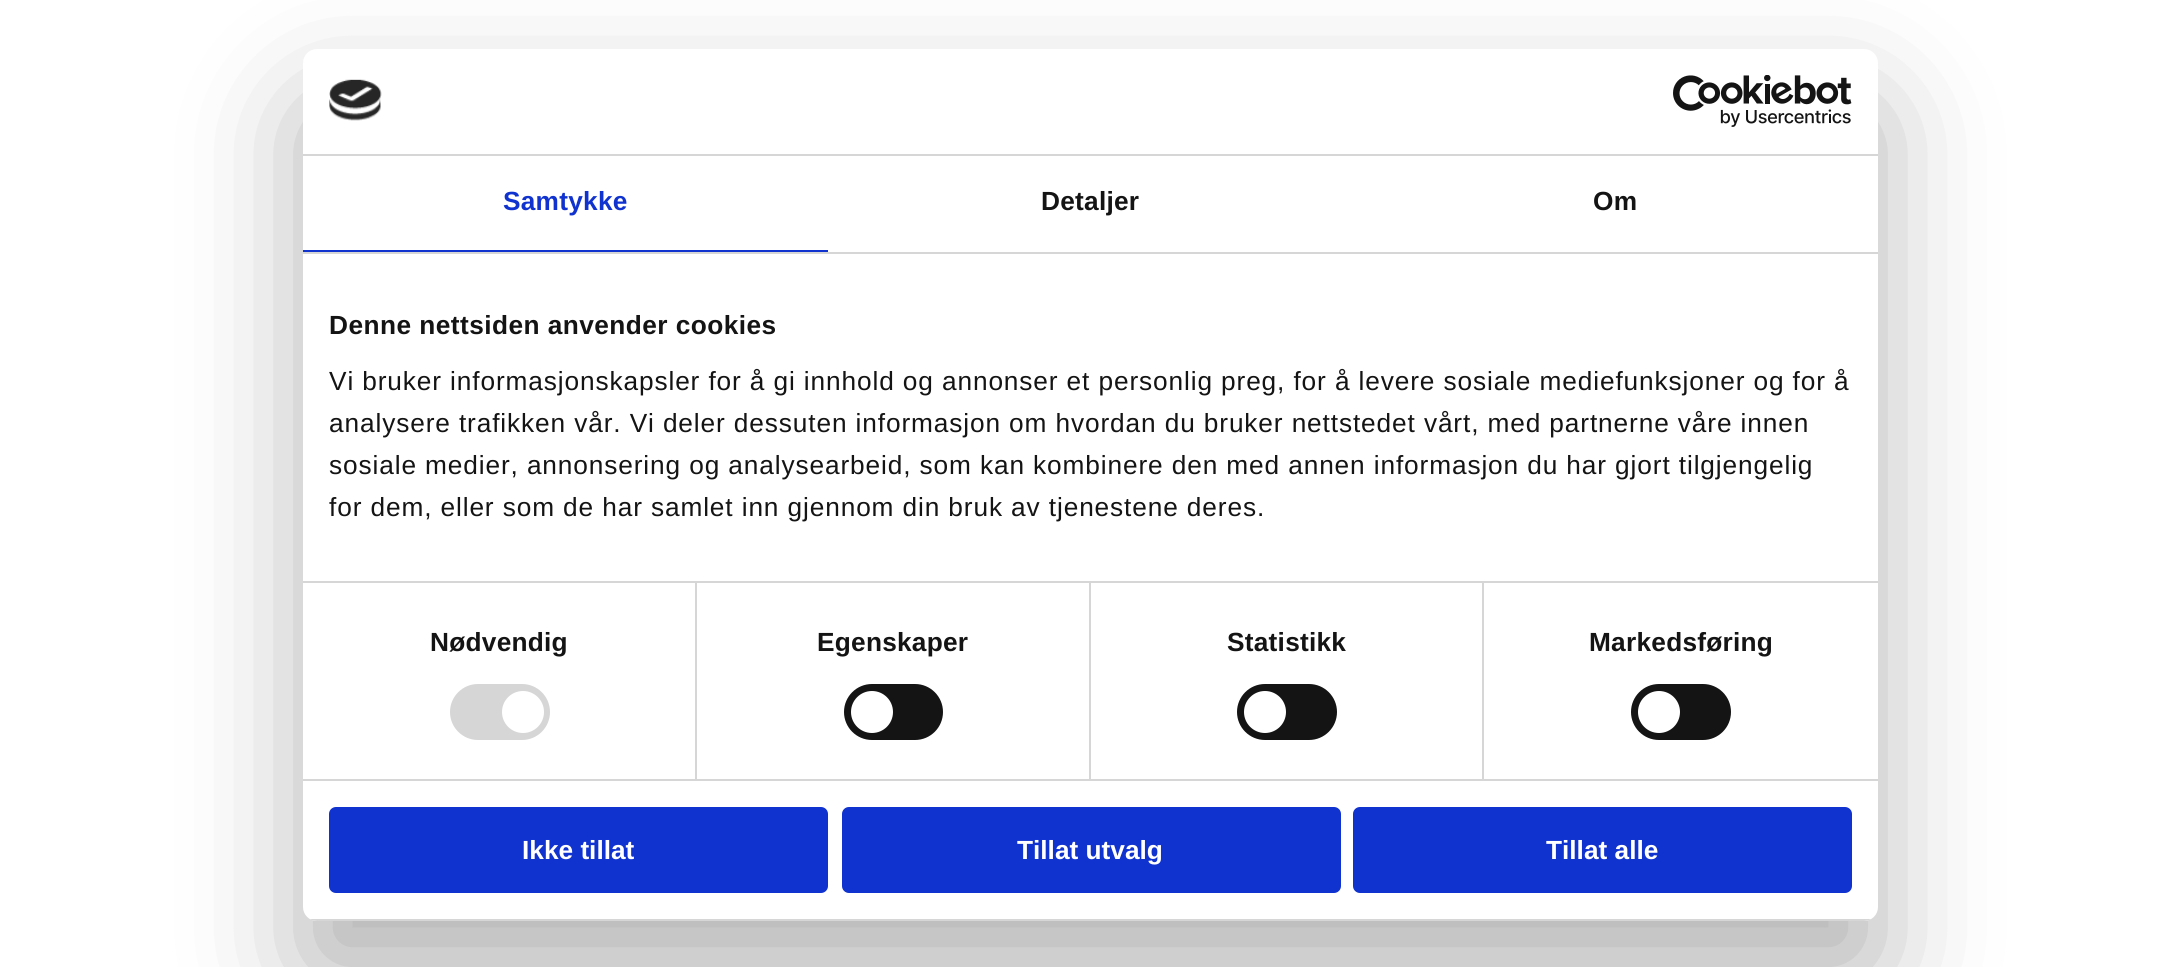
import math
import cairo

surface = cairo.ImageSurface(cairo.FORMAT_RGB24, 2179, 967)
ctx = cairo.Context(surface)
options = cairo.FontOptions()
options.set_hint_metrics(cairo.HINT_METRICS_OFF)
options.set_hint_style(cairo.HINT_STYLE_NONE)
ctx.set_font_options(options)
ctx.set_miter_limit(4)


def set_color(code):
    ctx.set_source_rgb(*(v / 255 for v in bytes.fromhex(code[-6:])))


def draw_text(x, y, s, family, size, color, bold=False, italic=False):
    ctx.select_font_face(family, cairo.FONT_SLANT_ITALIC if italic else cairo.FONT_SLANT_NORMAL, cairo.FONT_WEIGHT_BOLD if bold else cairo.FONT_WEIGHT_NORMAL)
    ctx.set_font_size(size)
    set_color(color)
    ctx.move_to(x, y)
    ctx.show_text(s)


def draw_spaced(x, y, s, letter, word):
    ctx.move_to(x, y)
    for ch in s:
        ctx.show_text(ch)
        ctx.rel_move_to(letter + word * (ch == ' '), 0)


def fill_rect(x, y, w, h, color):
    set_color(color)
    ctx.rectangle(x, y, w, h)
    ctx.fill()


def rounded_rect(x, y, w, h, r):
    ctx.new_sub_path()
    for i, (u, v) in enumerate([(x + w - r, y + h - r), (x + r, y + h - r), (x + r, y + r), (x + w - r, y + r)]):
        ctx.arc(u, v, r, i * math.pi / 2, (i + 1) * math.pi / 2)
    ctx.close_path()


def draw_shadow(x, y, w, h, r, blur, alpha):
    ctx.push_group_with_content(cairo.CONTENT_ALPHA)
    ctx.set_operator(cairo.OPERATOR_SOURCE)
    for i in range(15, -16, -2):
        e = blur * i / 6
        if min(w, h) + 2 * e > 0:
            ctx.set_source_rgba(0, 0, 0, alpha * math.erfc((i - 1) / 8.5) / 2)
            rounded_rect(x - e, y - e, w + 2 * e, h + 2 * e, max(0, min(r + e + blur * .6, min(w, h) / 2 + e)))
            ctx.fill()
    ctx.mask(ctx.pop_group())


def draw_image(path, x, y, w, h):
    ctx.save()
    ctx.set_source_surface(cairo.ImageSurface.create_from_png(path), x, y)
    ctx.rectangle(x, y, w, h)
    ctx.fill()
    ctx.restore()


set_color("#ffffff")
ctx.paint()
set_color("#000000")
draw_shadow(303, 105, 1575, 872, 14, 59.5, 0.3)
set_color("#ffffff")
rounded_rect(303, 49, 1575, 872, 14)
ctx.fill()
fill_rect(303, 154, 1575, 2, "#d6d6d6")
draw_image("assets/img1.png", 329, 79, 53, 42)
draw_image("assets/img2.png", 1673, 75, 179, 52)
fill_rect(303, 252, 1575, 2, "#d6d6d6")
fill_rect(303, 250, 525, 2, "#1032cf")
ctx.select_font_face("Liberation Sans", cairo.FONT_SLANT_NORMAL, cairo.FONT_WEIGHT_BOLD)
ctx.set_font_size(26.25)
draw_spaced(503, 210, "Samtykke", 0.25, 0)
set_color("#141414")
draw_spaced(1041, 210, "Detaljer", 0.25, 0)
draw_spaced(1593, 210, "Om", 0.25, 0)
fill_rect(303, 581, 1575, 2, "#d6d6d6")
set_color("#141414")
draw_spaced(329, 334, "Denne nettsiden anvender cookies", 0.45, 0)
ctx.select_font_face("Liberation Sans")
draw_spaced(329, 390, "Vi bruker informasjonskapsler for å gi innhold og annonser et personlig preg, for å levere sosiale mediefunksjoner og for å", 0.88, 0)
draw_spaced(329, 432, "analysere trafikken vår. Vi deler dessuten informasjon om hvordan du bruker nettstedet vårt, med partnerne våre innen", 0.88, 0)
draw_spaced(329, 474, "sosiale medier, annonsering og analysearbeid, som kan kombinere den med annen informasjon du har gjort tilgjengelig", 0.88, 0)
draw_spaced(329, 516, "for dem, eller som de har samlet inn gjennom din bruk av tjenestene deres.", 0.88, 0)
fill_rect(303, 779, 1575, 2, "#d6d6d6")
fill_rect(695, 583, 2, 196, "#d6d6d6")
ctx.select_font_face("Liberation Sans", cairo.FONT_SLANT_NORMAL, cairo.FONT_WEIGHT_BOLD)
set_color("#141414")
draw_spaced(430, 651, "Nødvendig", 0.25, 0)
set_color("#d6d6d6")
rounded_rect(450, 684, 100, 56, 28)
ctx.fill()
set_color("#ffffff")
ctx.arc(523, 712, 21, 0, 2 * math.pi)
ctx.fill()
fill_rect(1089, 583, 2, 196, "#d6d6d6")
set_color("#141414")
draw_spaced(817, 651, "Egenskaper", 0.25, 0)
rounded_rect(844, 684, 99, 56, 28)
ctx.fill()
set_color("#ffffff")
ctx.arc(872, 712, 21, 0, 2 * math.pi)
ctx.fill()
fill_rect(1482, 583, 2, 196, "#d6d6d6")
set_color("#141414")
draw_spaced(1227, 651, "Statistikk", 0.25, 0)
rounded_rect(1237, 684, 100, 56, 28)
ctx.fill()
set_color("#ffffff")
ctx.arc(1265, 712, 21, 0, 2 * math.pi)
ctx.fill()
set_color("#141414")
draw_spaced(1589, 651, "Markedsføring", 0.25, 0)
rounded_rect(1631, 684, 100, 56, 28)
ctx.fill()
set_color("#ffffff")
ctx.arc(1659, 712, 21, 0, 2 * math.pi)
ctx.fill()
ctx.save()
rounded_rect(303, 49, 1575, 872, 14)
ctx.clip()
fill_rect(303, 919, 1575, 2, "#d6d6d6")
ctx.restore()
set_color("#1032cf")
rounded_rect(331, 809, 495, 82, 5)
ctx.fill_preserve()
ctx.set_line_width(4)
ctx.stroke()
draw_text(522, 859, "Ikke tillat", "Liberation Sans", 26.25, "#ffffff", bold=True)
set_color("#1032cf")
rounded_rect(844, 809, 495, 82, 5)
ctx.fill_preserve()
ctx.stroke()
draw_text(1017, 859, "Tillat utvalg", "Liberation Sans", 26.25, "#ffffff", bold=True)
set_color("#1032cf")
rounded_rect(1355, 809, 495, 82, 5)
ctx.fill_preserve()
ctx.stroke()
draw_text(1546, 859, "Tillat alle", "Liberation Sans", 26.25, "#ffffff", bold=True)
surface.write_to_png("output.png")
